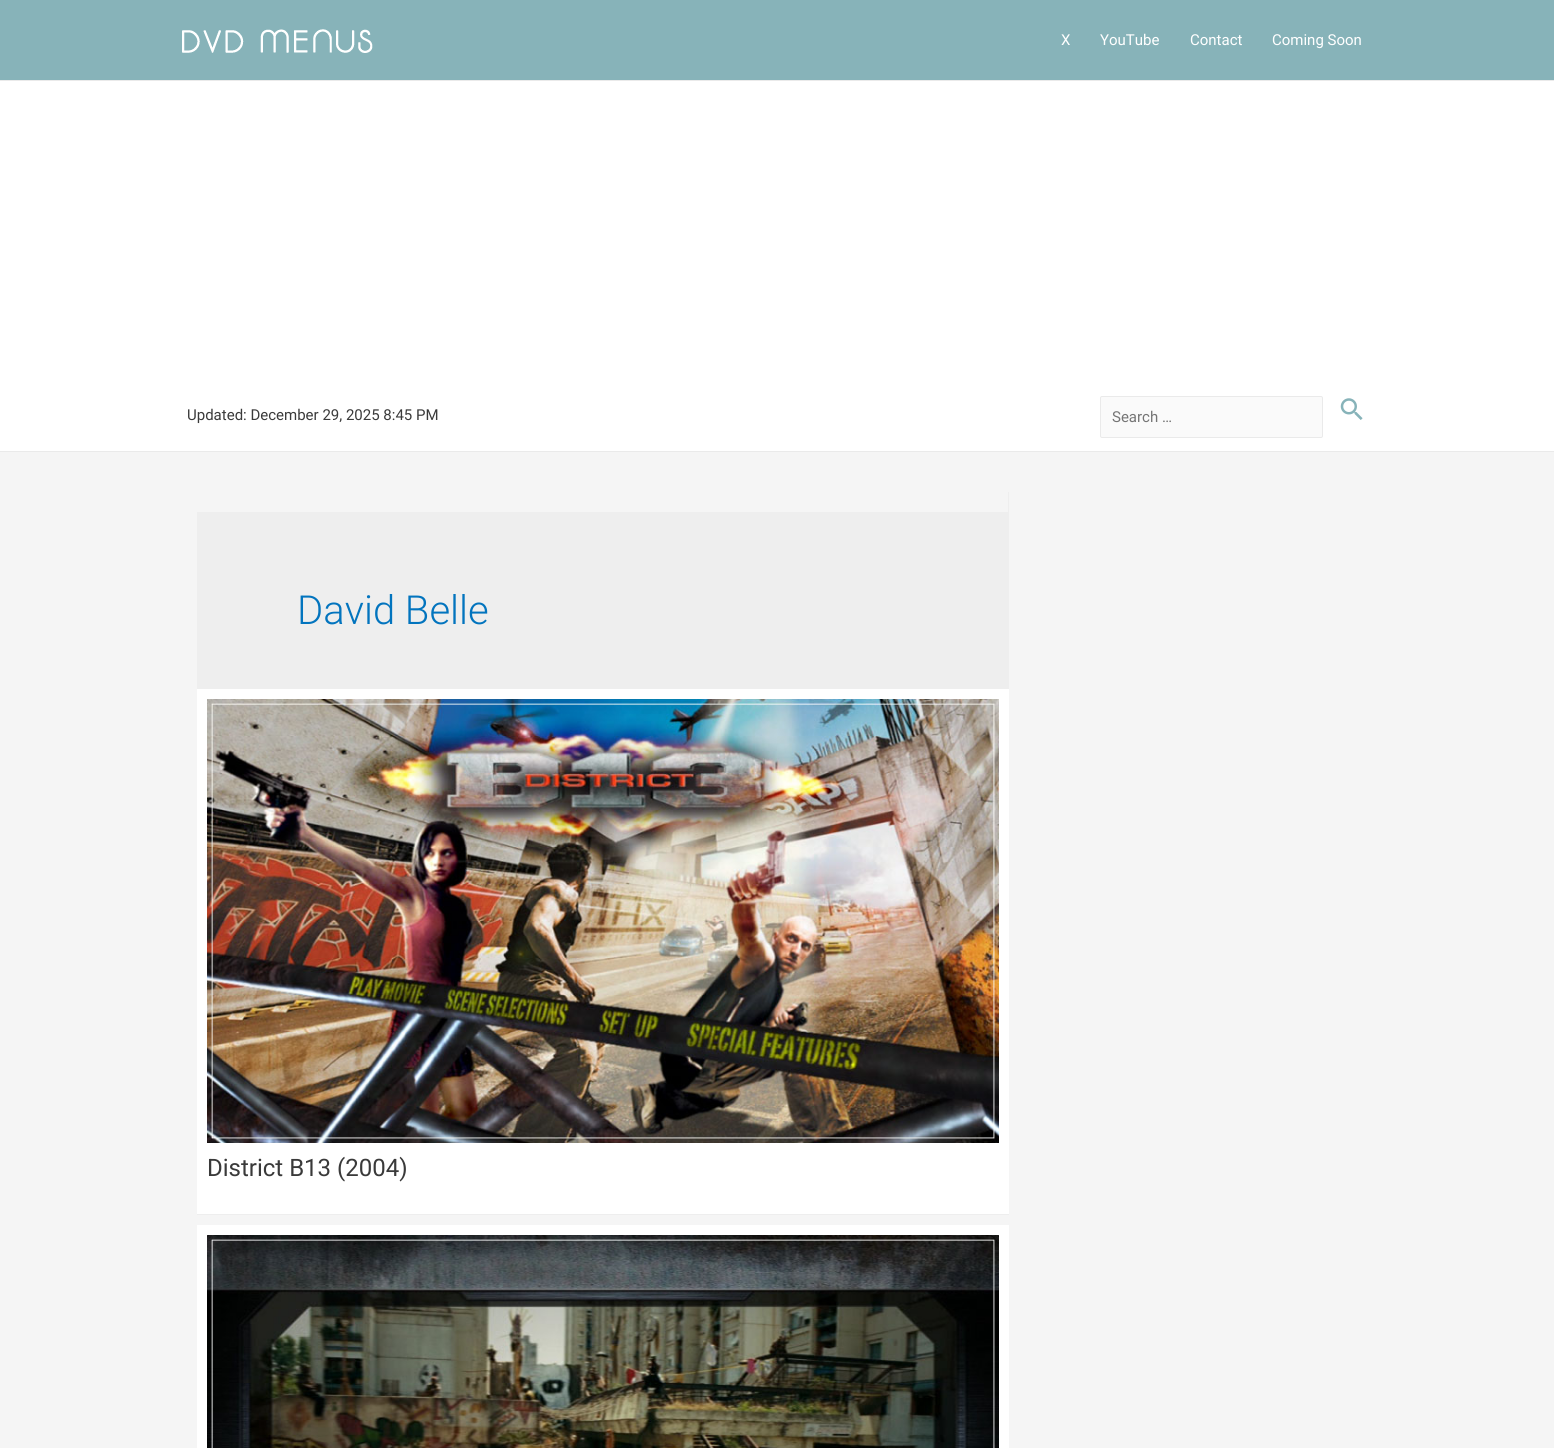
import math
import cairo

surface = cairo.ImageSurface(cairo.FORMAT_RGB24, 1554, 1448)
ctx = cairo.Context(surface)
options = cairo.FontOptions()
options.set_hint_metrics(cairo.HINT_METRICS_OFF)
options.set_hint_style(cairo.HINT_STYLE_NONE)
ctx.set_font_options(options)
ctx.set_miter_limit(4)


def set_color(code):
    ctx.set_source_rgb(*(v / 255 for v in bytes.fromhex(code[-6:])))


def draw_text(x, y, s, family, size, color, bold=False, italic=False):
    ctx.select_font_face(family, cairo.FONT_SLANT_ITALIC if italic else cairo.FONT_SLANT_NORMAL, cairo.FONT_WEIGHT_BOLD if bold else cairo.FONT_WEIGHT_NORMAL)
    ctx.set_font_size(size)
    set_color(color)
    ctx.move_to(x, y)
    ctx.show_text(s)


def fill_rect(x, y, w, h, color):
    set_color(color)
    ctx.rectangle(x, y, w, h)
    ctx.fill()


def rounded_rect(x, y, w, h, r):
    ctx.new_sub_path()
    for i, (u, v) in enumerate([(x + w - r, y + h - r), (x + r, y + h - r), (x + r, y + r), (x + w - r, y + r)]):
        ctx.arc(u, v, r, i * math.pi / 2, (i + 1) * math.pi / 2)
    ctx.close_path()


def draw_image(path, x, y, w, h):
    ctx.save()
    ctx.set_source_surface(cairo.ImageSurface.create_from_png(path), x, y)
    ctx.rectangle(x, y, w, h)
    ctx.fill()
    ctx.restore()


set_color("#f5f5f5")
ctx.paint()
fill_rect(0, 0, 1554, 80, "#87b3b9")
fill_rect(0, 80, 1554, 1, "#eaeaea")
draw_image("assets/img1.png", 182, 29, 191, 24)
draw_text(1061, 45, "X", "Roboto", 15, "#ffffff")
draw_text(1100, 45, "YouTube", "Roboto", 15, "#ffffff")
draw_text(1190, 45, "Contact", "Roboto", 15, "#ffffff")
draw_text(1272, 45, "Coming Soon", "Roboto", 15, "#ffffff")
fill_rect(0, 81, 1554, 370, "#ffffff")
fill_rect(0, 451, 1554, 1, "#eaeaea")
draw_text(187, 420, "Updated: December 29, 2025 8:45 PM", "Roboto", 15, "#3a3a3a")
set_color("#fafafa")
rounded_rect(1100.5, 396.5, 222, 41, 1.5)
ctx.fill_preserve()
set_color("#eaeaea")
ctx.set_line_width(1)
ctx.stroke()
draw_text(1112, 422, "Search …", "Roboto", 15, "#757575")
draw_image("assets/img2.png", 1340, 398, 23, 22)
fill_rect(1008, 492, 1, 20, "#eeeeee")
fill_rect(197, 512, 812, 177, "#eeeeee")
draw_text(297, 624, "David Belle", "Roboto Light", 40, "#0274be")
fill_rect(197, 689, 812, 525, "#ffffff")
fill_rect(197, 1214, 812, 1, "#eeeeee")
draw_image("assets/img3.png", 207, 699, 792, 444)
draw_text(207, 1176, "District B13 (2004)", "Roboto", 24, "#3a3a3a")
fill_rect(197, 1225, 812, 223, "#ffffff")
draw_image("assets/img4.png", 207, 1235, 792, 213)
surface.write_to_png("output.png")
